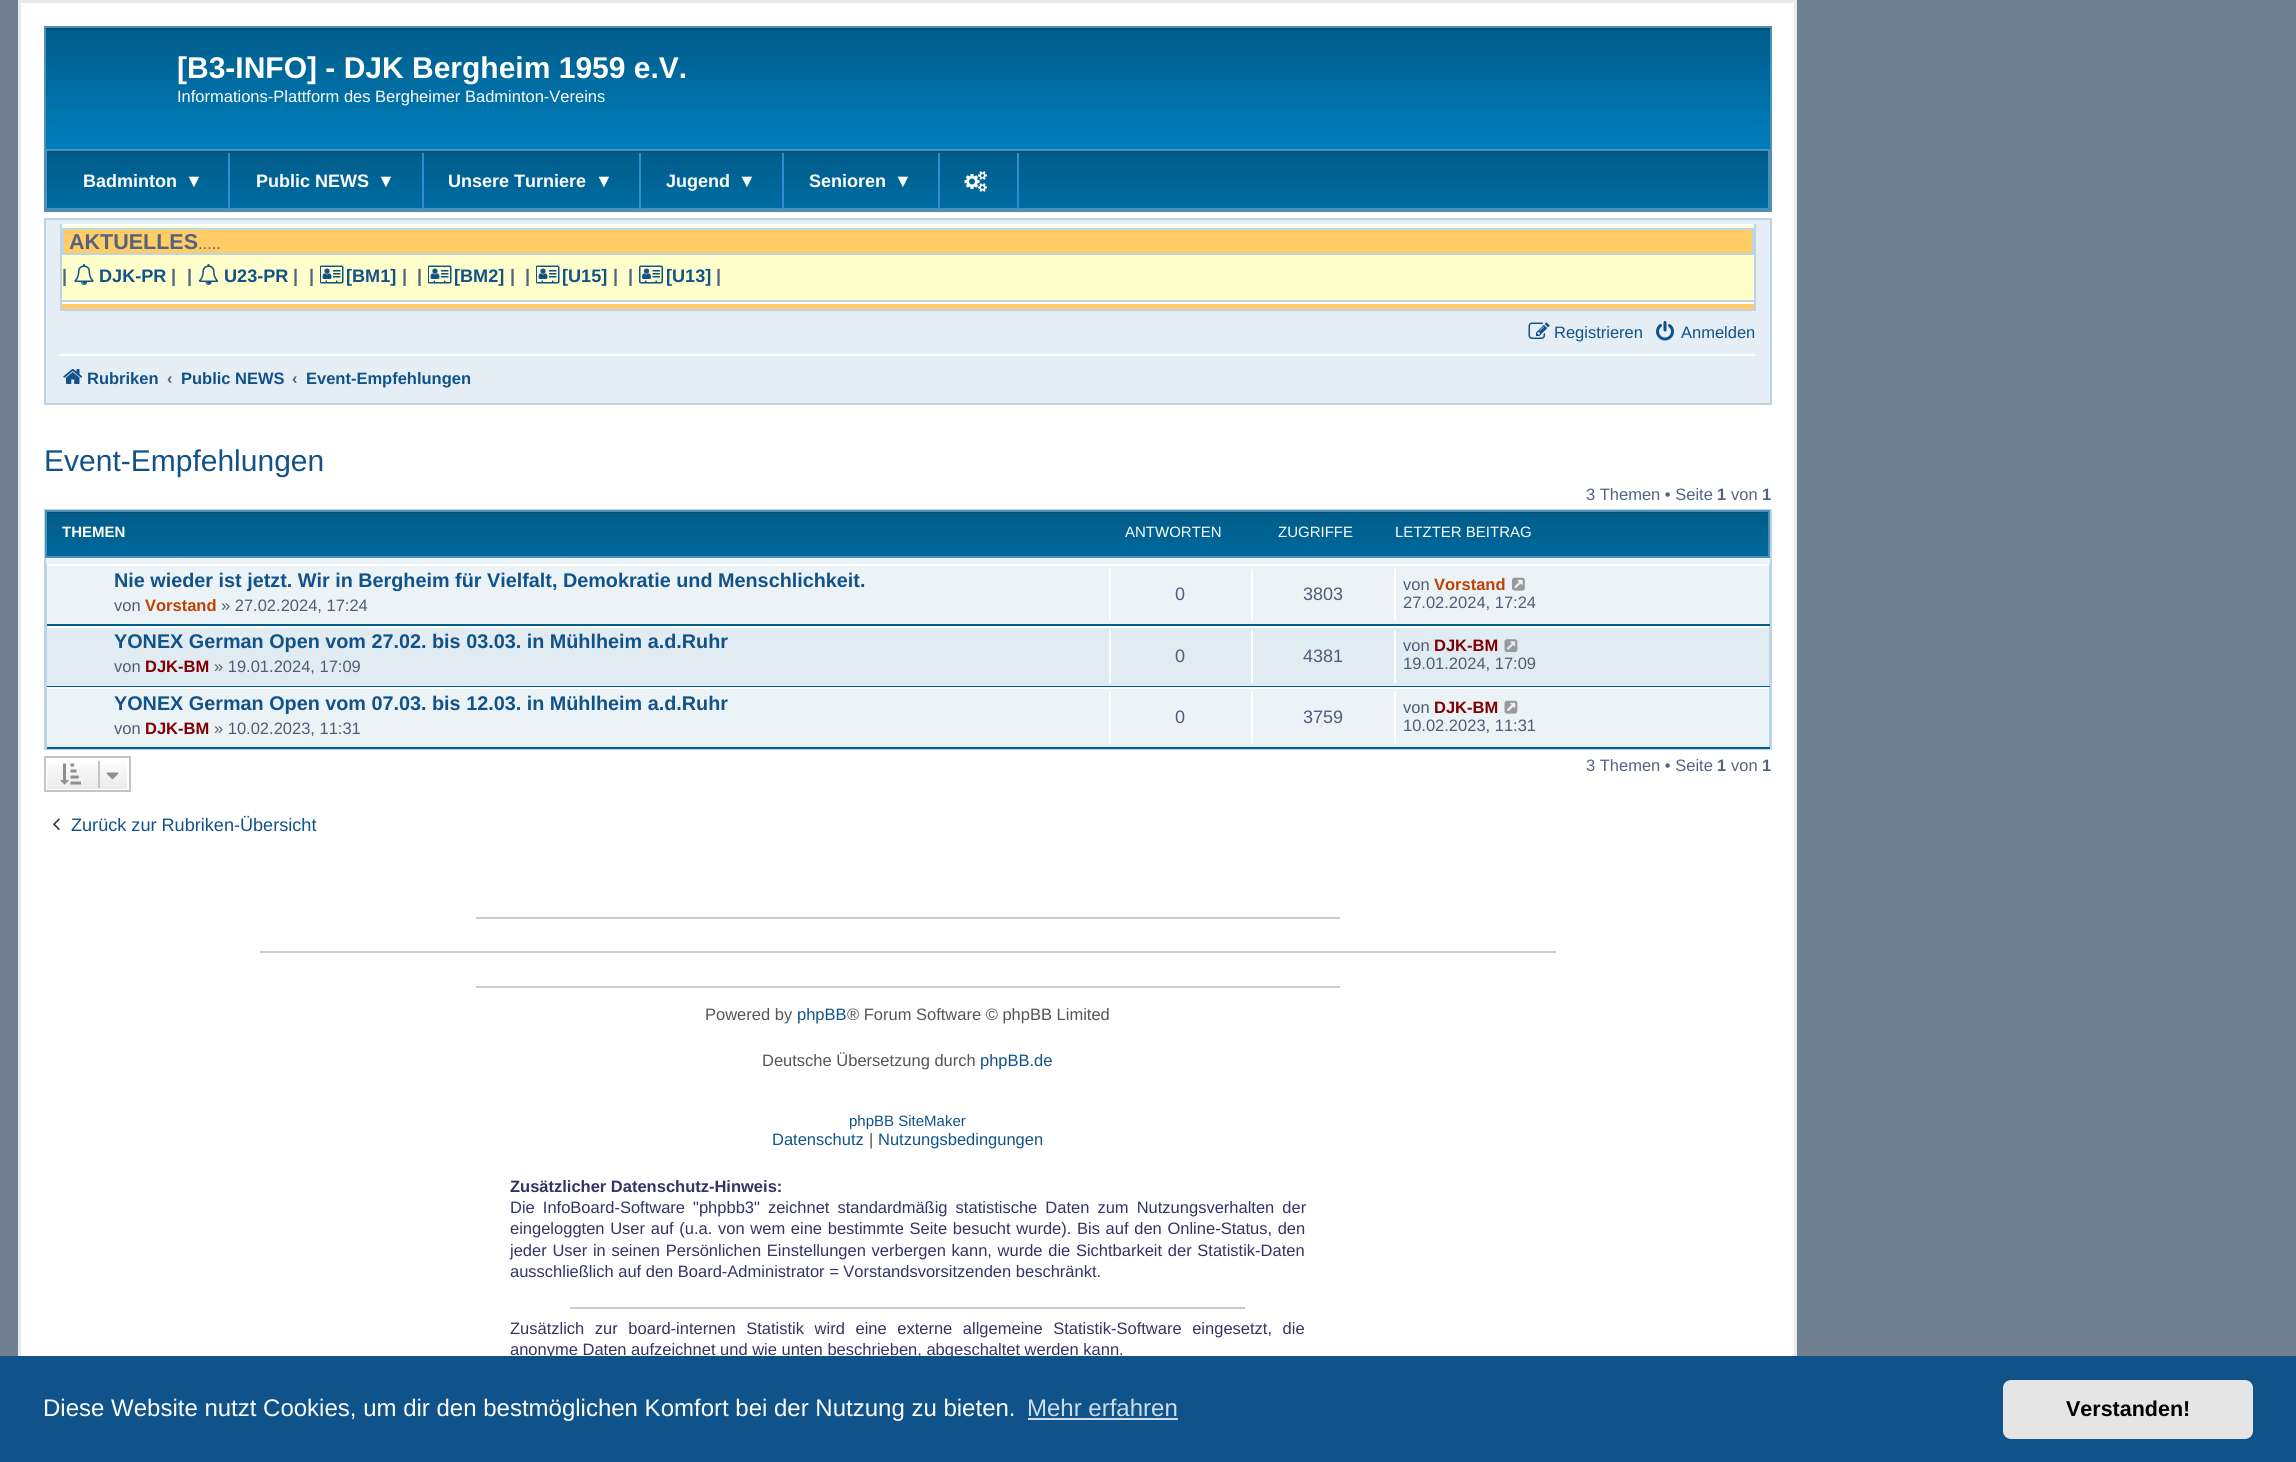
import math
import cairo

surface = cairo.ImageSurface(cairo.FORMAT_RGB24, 2296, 1462)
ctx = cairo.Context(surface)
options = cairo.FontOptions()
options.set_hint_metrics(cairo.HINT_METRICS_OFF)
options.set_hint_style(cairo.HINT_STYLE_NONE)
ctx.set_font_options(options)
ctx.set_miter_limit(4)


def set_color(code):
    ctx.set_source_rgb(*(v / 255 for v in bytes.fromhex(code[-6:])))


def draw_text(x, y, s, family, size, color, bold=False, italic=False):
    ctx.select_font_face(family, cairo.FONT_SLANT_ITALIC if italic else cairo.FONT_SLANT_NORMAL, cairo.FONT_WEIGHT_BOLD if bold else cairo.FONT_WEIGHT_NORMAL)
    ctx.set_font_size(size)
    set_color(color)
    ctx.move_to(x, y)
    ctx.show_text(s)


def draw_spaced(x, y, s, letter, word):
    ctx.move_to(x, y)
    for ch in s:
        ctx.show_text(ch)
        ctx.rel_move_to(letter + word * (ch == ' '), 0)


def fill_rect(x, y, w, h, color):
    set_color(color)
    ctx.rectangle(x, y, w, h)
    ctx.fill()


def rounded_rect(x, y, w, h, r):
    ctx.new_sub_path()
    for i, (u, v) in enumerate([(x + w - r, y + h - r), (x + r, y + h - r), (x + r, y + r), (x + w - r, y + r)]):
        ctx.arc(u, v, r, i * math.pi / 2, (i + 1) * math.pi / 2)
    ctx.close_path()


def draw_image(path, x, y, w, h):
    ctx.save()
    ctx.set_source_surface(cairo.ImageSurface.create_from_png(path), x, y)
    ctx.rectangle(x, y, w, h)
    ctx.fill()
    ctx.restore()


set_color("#708090")
ctx.paint()
fill_rect(21, 3, 1773, 1353, "#ffffff")
ctx.rectangle(19.5, 1.5, 1776, 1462)
set_color("#e6e9ed")
ctx.set_line_width(3)
ctx.stroke()
gradient = cairo.LinearGradient(908, 27, 908, 210)
gradient.add_color_stop_rgba(0, 0, 0.247, 0.369, 1)
gradient.add_color_stop_rgba(0.02, 0, 0.361, 0.541, 1)
gradient.add_color_stop_rgba(0.75, 0, 0.518, 0.769, 1)
gradient.add_color_stop_rgba(1, 0, 0.518, 0.769, 1)
ctx.set_source(gradient)
ctx.rectangle(46, 28, 1724, 121)
ctx.fill()
ctx.rectangle(45, 27, 1726, 184)
set_color("#4f91b6")
ctx.set_line_width(2)
ctx.stroke()
draw_text(177, 78, "[B3-INFO] - DJK Bergheim 1959 e.V.", "Liberation Sans", 30, "#ffffff", bold=True)
draw_text(177, 102, "Informations-Plattform des Bergheimer Badminton-Vereins", "Liberation Sans", 16.5, "#ffffff")
gradient = cairo.LinearGradient(908, 150, 908, 288)
gradient.add_color_stop_rgba(0, 0, 0.247, 0.369, 1)
gradient.add_color_stop_rgba(0.02, 0, 0.361, 0.541, 1)
gradient.add_color_stop_rgba(1, 0, 0.518, 0.769, 1)
ctx.set_source(gradient)
ctx.rectangle(47, 151, 1721, 57)
ctx.fill()
ctx.rectangle(46, 150, 1723, 59)
set_color("#4f91b6")
ctx.stroke()
fill_rect(228, 153, 2, 56, "#368ad2")
draw_text(83, 187, "Badminton", "Liberation Sans", 18, "#ffffff", bold=True)
draw_text(185, 187, "▼", "Liberation Sans", 18, "#ffffff", bold=True)
fill_rect(422, 153, 2, 56, "#368ad2")
draw_text(256, 187, "Public NEWS", "Liberation Sans", 18, "#ffffff", bold=True)
draw_text(377, 187, "▼", "Liberation Sans", 18, "#ffffff", bold=True)
fill_rect(639, 153, 2, 56, "#368ad2")
draw_text(448, 187, "Unsere Turniere", "Liberation Sans", 18, "#ffffff", bold=True)
draw_text(595, 187, "▼", "Liberation Sans", 18, "#ffffff", bold=True)
fill_rect(782, 153, 2, 56, "#368ad2")
draw_text(666, 187, "Jugend", "Liberation Sans", 18, "#ffffff", bold=True)
draw_text(738, 187, "▼", "Liberation Sans", 18, "#ffffff", bold=True)
fill_rect(938, 153, 2, 56, "#368ad2")
draw_text(809, 187, "Senioren", "Liberation Sans", 18, "#ffffff", bold=True)
draw_text(894, 187, "▼", "Liberation Sans", 18, "#ffffff", bold=True)
fill_rect(1017, 153, 2, 56, "#368ad2")
draw_image("assets/img1.png", 964, 171, 23, 21)
set_color("#e5eef5")
ctx.rectangle(45, 219, 1726, 185)
ctx.fill_preserve()
set_color("#bcd4e3")
ctx.stroke()
fill_rect(62, 226, 1692, 74, "#ffffcc")
fill_rect(60, 224, 1695, 2, "#ffffff")
fill_rect(1754, 224, 2, 78, "#bcd4e3")
fill_rect(60, 300, 1695, 2, "#bcd4e3")
fill_rect(60, 224, 2, 78, "#bcd4e3")
set_color("#ffcc66")
ctx.rectangle(63, 229, 1690, 25)
ctx.fill_preserve()
set_color("#bcd4e3")
ctx.stroke()
draw_text(69, 249, "AKTUELLES", "Liberation Sans", 21.5, "#536482", bold=True)
draw_text(198, 249, ".....", "Liberation Sans", 16.5, "#536482")
draw_text(62, 282, "|", "Liberation Sans", 18.1, "#536482", bold=True)
draw_image("assets/img2.png", 74, 264, 20, 21)
draw_text(99, 282, "DJK-PR", "Liberation Sans", 18.1, "#105289", bold=True)
draw_text(171, 282, "|", "Liberation Sans", 18.1, "#536482", bold=True)
draw_text(187, 282, "|", "Liberation Sans", 18.1, "#536482", bold=True)
draw_image("assets/img3.png", 198, 264, 21, 21)
draw_text(224, 282, "U23-PR", "Liberation Sans", 18.1, "#105289", bold=True)
draw_text(293, 282, "|", "Liberation Sans", 18.1, "#536482", bold=True)
draw_text(309, 282, "|", "Liberation Sans", 18.1, "#536482", bold=True)
draw_image("assets/img4.png", 320, 265, 24, 19)
draw_text(346, 282, "[BM1]", "Liberation Sans", 18.1, "#105289", bold=True)
draw_text(402, 282, "|", "Liberation Sans", 18.1, "#536482", bold=True)
draw_text(417, 282, "|", "Liberation Sans", 18.1, "#536482", bold=True)
draw_image("assets/img4.png", 428, 265, 24, 19)
draw_text(454, 282, "[BM2]", "Liberation Sans", 18.1, "#105289", bold=True)
draw_text(510, 282, "|", "Liberation Sans", 18.1, "#536482", bold=True)
draw_text(525, 282, "|", "Liberation Sans", 18.1, "#536482", bold=True)
draw_image("assets/img4.png", 536, 265, 24, 19)
draw_text(562, 282, "[U15]", "Liberation Sans", 18.1, "#105289", bold=True)
draw_text(613, 282, "|", "Liberation Sans", 18.1, "#536482", bold=True)
draw_text(628, 282, "|", "Liberation Sans", 18.1, "#536482", bold=True)
draw_image("assets/img5.png", 639, 265, 24, 19)
draw_text(666, 282, "[U13]", "Liberation Sans", 18.1, "#105289", bold=True)
draw_text(716, 282, "|", "Liberation Sans", 18.1, "#536482", bold=True)
fill_rect(62, 304, 1692, 5, "#ffcc66")
fill_rect(60, 302, 1695, 2, "#ffffff")
fill_rect(1754, 302, 2, 9, "#bcd4e3")
fill_rect(60, 309, 1695, 2, "#bcd4e3")
fill_rect(60, 302, 2, 9, "#bcd4e3")
draw_image("assets/img6.png", 1528, 322, 22, 17)
draw_text(1554, 338, "Registrieren", "Liberation Sans", 16.5, "#105289")
draw_image("assets/img7.png", 1656, 321, 18, 20)
draw_text(1681, 338, "Anmelden", "Liberation Sans", 16.5, "#105289")
fill_rect(60, 354, 1695, 2, "#ffffff")
draw_image("assets/img8.png", 63, 369, 20, 15)
draw_text(87, 384, "Rubriken", "Liberation Sans", 16.5, "#105289", bold=True)
draw_text(167, 384, "‹", "Liberation Sans", 16.5, "#536482", bold=True)
draw_text(181, 384, "Public NEWS", "Liberation Sans", 16.5, "#105289", bold=True)
draw_text(292, 384, "‹", "Liberation Sans", 16.5, "#536482", bold=True)
draw_text(306, 384, "Event-Empfehlungen", "Liberation Sans", 16.5, "#105289", bold=True)
draw_text(44, 471, "Event-Empfehlungen", "Liberation Sans", 30, "#105289")
draw_text(1586, 500, "3 Themen • Seite", "Liberation Sans", 16.5, "#536482")
draw_text(1717, 500, "1", "Liberation Sans", 16.5, "#536482", bold=True)
draw_text(1731, 500, "von", "Liberation Sans", 16.5, "#536482")
draw_text(1762, 500, "1", "Liberation Sans", 16.5, "#536482", bold=True)
fill_rect(46, 558, 1724, 6, "#ecf3f7")
ctx.rectangle(45, 510, 1726, 239)
set_color("#bcd4e3")
ctx.stroke()
gradient = cairo.LinearGradient(908, 511, 908, 649)
gradient.add_color_stop_rgba(0, 0, 0.247, 0.369, 1)
gradient.add_color_stop_rgba(0.02, 0, 0.361, 0.541, 1)
gradient.add_color_stop_rgba(1, 0, 0.518, 0.769, 1)
ctx.set_source(gradient)
ctx.rectangle(47, 512, 1721, 44)
ctx.fill()
ctx.rectangle(46, 511, 1723, 46)
set_color("#4f91b6")
ctx.stroke()
draw_text(62, 537, "THEMEN", "Liberation Sans", 15, "#ffffff", bold=True)
draw_text(1125, 537, "ANTWORTEN", "Liberation Sans", 15, "#ffffff")
draw_text(1278, 537, "ZUGRIFFE", "Liberation Sans", 15, "#ffffff")
draw_text(1395, 537, "LETZTER BEITRAG", "Liberation Sans", 15, "#ffffff")
fill_rect(47, 566, 1722, 58, "#ecf3f7")
fill_rect(45, 564, 1, 2, "#ffffff")
fill_rect(1769, 564, 1, 185, "#bcd4e3")
fill_rect(45, 624, 1725, 2, "#00608f")
fill_rect(45, 564, 2, 62, "#bcd4e3")
draw_text(114, 587, "Nie wieder ist jetzt. Wir in Bergheim für Vielfalt, Demokratie und Menschlichkeit.", "Liberation Sans", 19.8, "#105289", bold=True)
draw_text(114, 611, "von", "Liberation Sans", 16.5, "#4c5d77")
draw_text(145, 611, "Vorstand", "Liberation Sans", 16.5, "#bf4000", bold=True)
draw_text(221, 611, "» 27.02.2024, 17:24", "Liberation Sans", 16.5, "#4c5d77")
fill_rect(1109, 569, 2, 52, "#ffffff")
draw_text(1175, 600, "0", "Liberation Sans", 18, "#4c5d77")
fill_rect(1251, 569, 2, 52, "#ffffff")
draw_text(1303, 600, "3803", "Liberation Sans", 18, "#4c5d77")
fill_rect(1394, 569, 2, 52, "#ffffff")
draw_text(1403, 590, "von", "Liberation Sans", 16.5, "#4c5d77")
draw_text(1434, 590, "Vorstand", "Liberation Sans", 16.5, "#bf4000", bold=True)
draw_image("assets/img9.png", 1512, 577, 13, 14)
draw_text(1403, 608, "27.02.2024, 17:24", "Liberation Sans", 16.5, "#4c5d77")
fill_rect(47, 628, 1722, 58, "#e1ebf2")
fill_rect(45, 626, 1, 2, "#ffffff")
fill_rect(45, 686, 1725, 1, "#00608f")
fill_rect(45, 626, 2, 61, "#bcd4e3")
draw_text(114, 648, "YONEX German Open vom 27.02. bis 03.03. in Mühlheim a.d.Ruhr", "Liberation Sans", 19.8, "#105289", bold=True)
draw_text(114, 672, "von", "Liberation Sans", 16.5, "#4c5d77")
draw_text(145, 672, "DJK-BM", "Liberation Sans", 16.5, "#800000", bold=True)
draw_text(214, 672, "» 19.01.2024, 17:09", "Liberation Sans", 16.5, "#4c5d77")
fill_rect(1109, 630, 2, 53, "#ffffff")
draw_text(1175, 662, "0", "Liberation Sans", 18, "#4c5d77")
fill_rect(1251, 630, 2, 53, "#ffffff")
draw_text(1303, 662, "4381", "Liberation Sans", 18, "#4c5d77")
fill_rect(1394, 630, 2, 53, "#ffffff")
draw_text(1403, 651, "von", "Liberation Sans", 16.5, "#4c5d77")
draw_text(1434, 651, "DJK-BM", "Liberation Sans", 16.5, "#800000", bold=True)
draw_image("assets/img10.png", 1504, 639, 14, 14)
draw_text(1403, 669, "19.01.2024, 17:09", "Liberation Sans", 16.5, "#4c5d77")
fill_rect(47, 689, 1722, 58, "#ecf3f7")
fill_rect(45, 687, 1, 2, "#ffffff")
fill_rect(45, 747, 1725, 2, "#00608f")
fill_rect(45, 687, 2, 62, "#bcd4e3")
draw_text(114, 710, "YONEX German Open vom 07.03. bis 12.03. in Mühlheim a.d.Ruhr", "Liberation Sans", 19.8, "#105289", bold=True)
draw_text(114, 734, "von", "Liberation Sans", 16.5, "#4c5d77")
draw_text(145, 734, "DJK-BM", "Liberation Sans", 16.5, "#800000", bold=True)
draw_text(214, 734, "» 10.02.2023, 11:31", "Liberation Sans", 16.5, "#4c5d77")
fill_rect(1109, 692, 2, 52, "#ffffff")
draw_text(1175, 723, "0", "Liberation Sans", 18, "#4c5d77")
fill_rect(1251, 692, 2, 52, "#ffffff")
draw_text(1303, 723, "3759", "Liberation Sans", 18, "#4c5d77")
fill_rect(1394, 692, 2, 52, "#ffffff")
draw_text(1403, 713, "von", "Liberation Sans", 16.5, "#4c5d77")
draw_text(1434, 713, "DJK-BM", "Liberation Sans", 16.5, "#800000", bold=True)
draw_image("assets/img11.png", 1504, 700, 14, 14)
draw_text(1403, 731, "10.02.2023, 11:31", "Liberation Sans", 16.5, "#4c5d77")
gradient = cairo.LinearGradient(87, 758, 87, 791)
gradient.add_color_stop_rgba(0, 1, 1, 1, 1)
gradient.add_color_stop_rgba(1, 0.914, 0.914, 0.914, 1)
ctx.set_source(gradient)
ctx.rectangle(47, 762, 80, 27)
ctx.fill()
ctx.rectangle(45, 757, 85, 34)
set_color("#c7c3bf")
ctx.stroke()
draw_image("assets/img12.png", 60, 763, 21, 22)
fill_rect(98, 761, 2, 27, "#c7c3bf")
draw_image("assets/img13.png", 106, 772, 13, 8)
draw_text(1586, 771, "3 Themen • Seite", "Liberation Sans", 16.5, "#536482")
draw_text(1717, 771, "1", "Liberation Sans", 16.5, "#536482", bold=True)
draw_text(1731, 771, "von", "Liberation Sans", 16.5, "#536482")
draw_text(1762, 771, "1", "Liberation Sans", 16.5, "#536482", bold=True)
draw_image("assets/img14.png", 53, 818, 7, 12)
draw_text(71, 831, "Zurück zur Rubriken-Übersicht", "Liberation Sans", 18.1, "#105289")
fill_rect(476, 917, 864, 2, "#cccccc")
fill_rect(260, 951, 1296, 2, "#cccccc")
fill_rect(476, 986, 864, 2, "#cccccc")
draw_text(705, 1020, "Powered by", "Liberation Sans", 16.5, "#555555")
draw_text(797, 1020, "phpBB", "Liberation Sans", 16.5, "#105289")
draw_text(847, 1020, "® Forum Software © phpBB Limited", "Liberation Sans", 16.5, "#555555")
draw_text(762, 1066, "Deutsche Übersetzung durch", "Liberation Sans", 16.5, "#555555")
draw_text(980, 1066, "phpBB.de", "Liberation Sans", 16.5, "#105289")
draw_text(849, 1126, "phpBB SiteMaker", "Liberation Sans", 15, "#105289")
draw_text(772, 1145, "Datenschutz", "Liberation Sans", 16.5, "#105289")
draw_text(869, 1145, "|", "Liberation Sans", 16.5, "#555555")
draw_text(878, 1145, "Nutzungsbedingungen", "Liberation Sans", 16.5, "#105289")
draw_text(510, 1192, "Zusätzlicher Datenschutz-Hinweis:", "Liberation Sans", 16.5, "#333366", bold=True)
ctx.select_font_face("Liberation Sans")
draw_spaced(510, 1213, "Die InfoBoard-Software \"phpbb3\" zeichnet standardmäßig statistische Daten zum Nutzungsverhalten der", 0, 3.5)
draw_spaced(510, 1234, "eingeloggten User auf (u.a. von wem eine bestimmte Seite besucht wurde). Bis auf den Online-Status, den", 0, 1.1)
draw_spaced(510, 1256, "jeder User in seinen Persönlichen Einstellungen verbergen kann, wurde die Sichtbarkeit der Statistik-Daten", 0, 1.1)
draw_text(510, 1277, "ausschließlich auf den Board-Administrator = Vorstandsvorsitzenden beschränkt.", "Liberation Sans", 16.5, "#333366")
fill_rect(570, 1307, 675, 2, "#cccccc")
set_color("#333366")
draw_spaced(510, 1334, "Zusätzlich zur board-internen Statistik wird eine externe allgemeine Statistik-Software eingesetzt, die", 0, 6)
draw_text(510, 1355, "anonyme Daten aufzeichnet und wie unten beschrieben, abgeschaltet werden kann.", "Liberation Sans", 16.5, "#333366")
fill_rect(0, 1356, 2296, 106, "#0f538a")
draw_text(43, 1416, "Diese Website nutzt Cookies, um dir den bestmöglichen Komfort bei der Nutzung zu bieten.", "Liberation Sans", 24, "#ffffff")
draw_text(1027, 1416, "Mehr erfahren", "Liberation Sans", 24, "#cfdde8")
fill_rect(1028, 1418, 150, 2, "#cfdde8")
set_color("#e5e5e5")
rounded_rect(2003, 1380, 250, 59, 8)
ctx.fill()
draw_text(2066, 1416, "Verstanden!", "Liberation Sans", 21.5, "#000000", bold=True)
surface.write_to_png("output.png")
